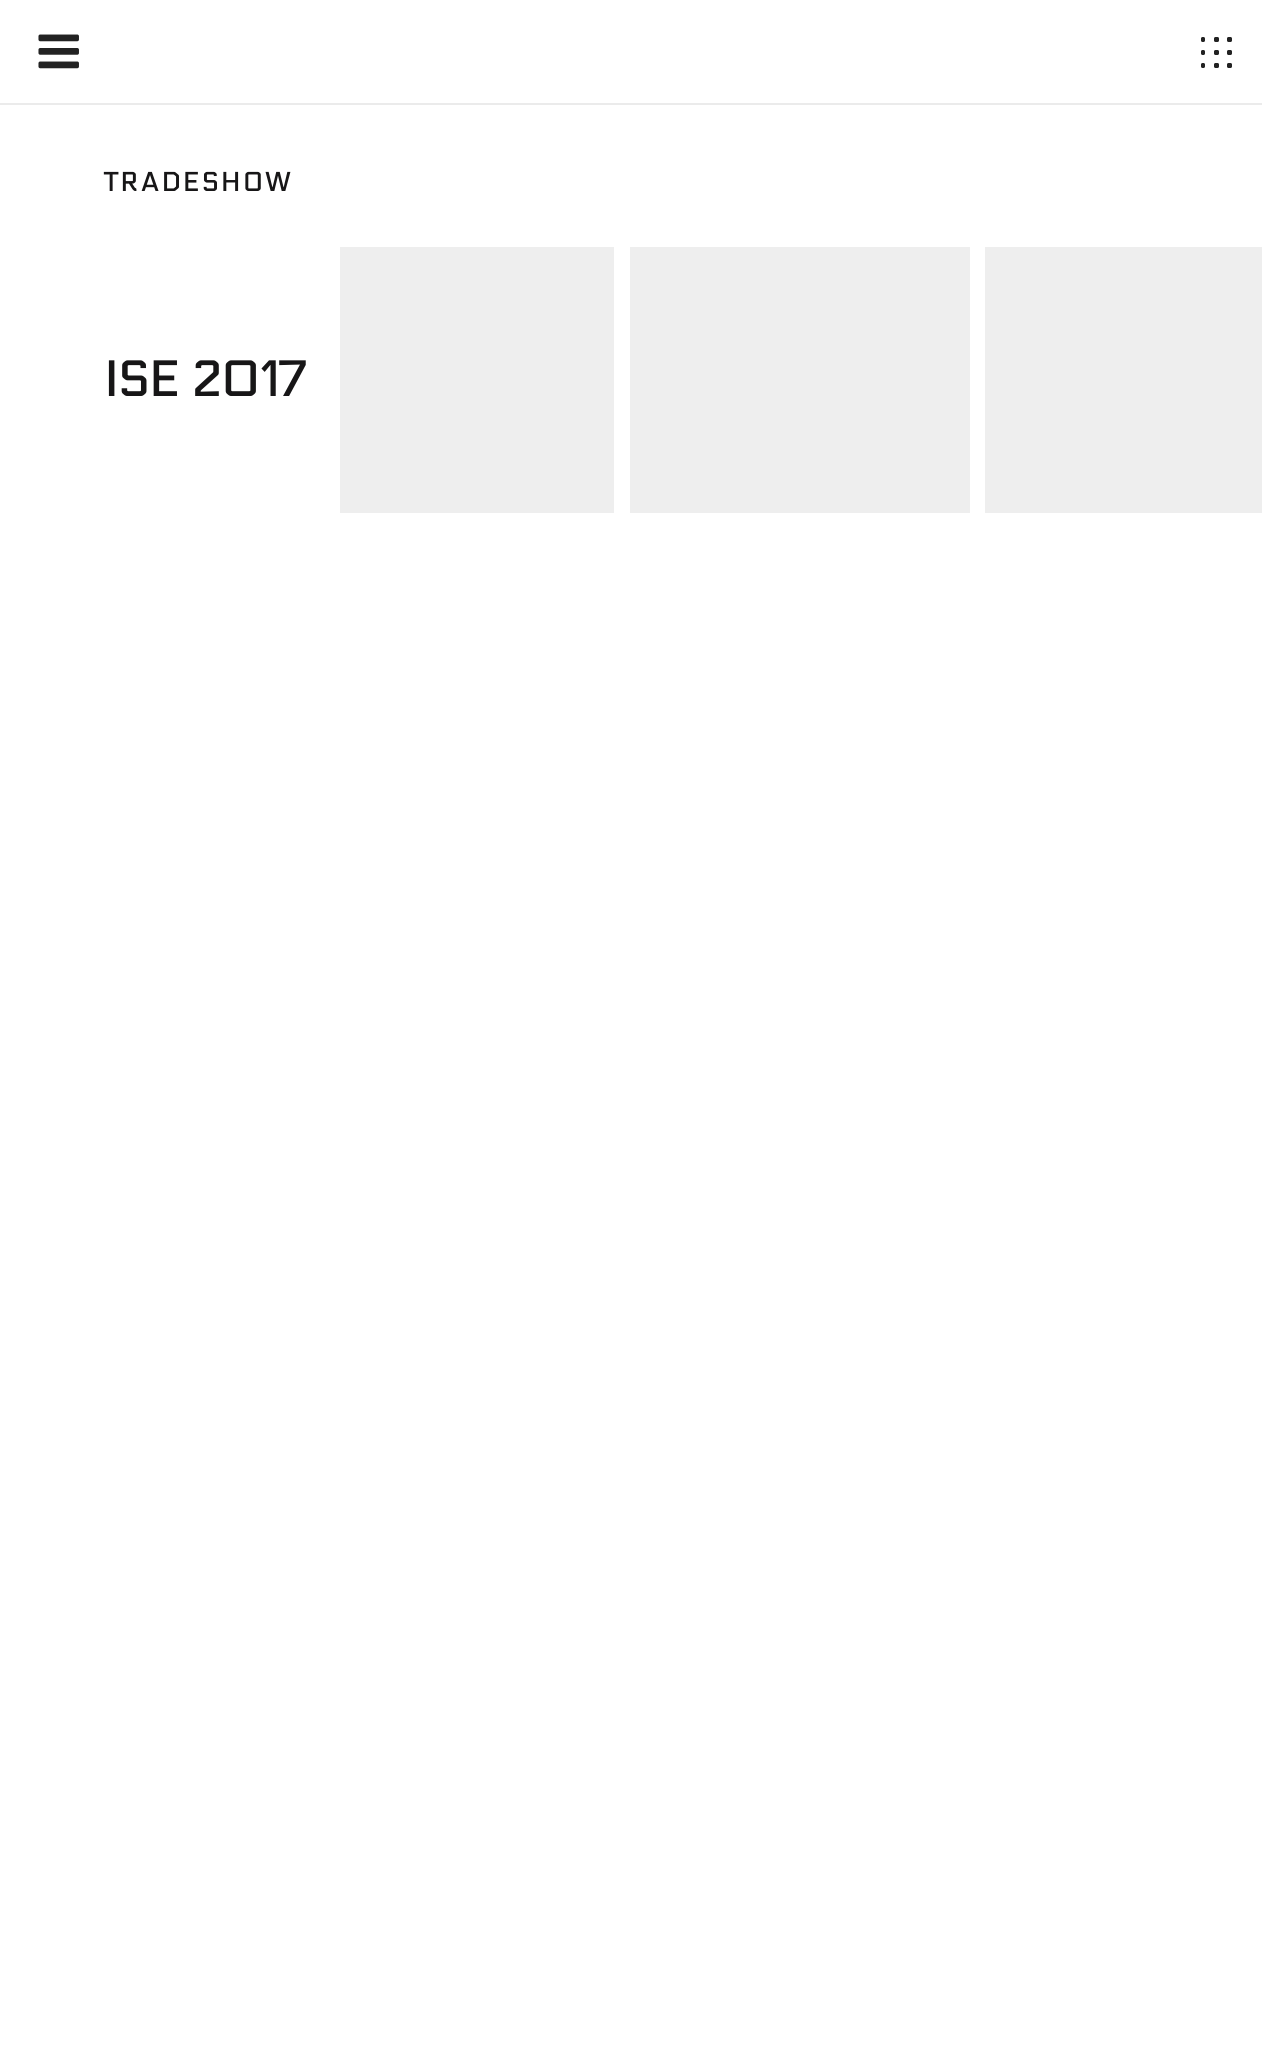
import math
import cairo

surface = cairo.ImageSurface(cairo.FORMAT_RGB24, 1262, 2046)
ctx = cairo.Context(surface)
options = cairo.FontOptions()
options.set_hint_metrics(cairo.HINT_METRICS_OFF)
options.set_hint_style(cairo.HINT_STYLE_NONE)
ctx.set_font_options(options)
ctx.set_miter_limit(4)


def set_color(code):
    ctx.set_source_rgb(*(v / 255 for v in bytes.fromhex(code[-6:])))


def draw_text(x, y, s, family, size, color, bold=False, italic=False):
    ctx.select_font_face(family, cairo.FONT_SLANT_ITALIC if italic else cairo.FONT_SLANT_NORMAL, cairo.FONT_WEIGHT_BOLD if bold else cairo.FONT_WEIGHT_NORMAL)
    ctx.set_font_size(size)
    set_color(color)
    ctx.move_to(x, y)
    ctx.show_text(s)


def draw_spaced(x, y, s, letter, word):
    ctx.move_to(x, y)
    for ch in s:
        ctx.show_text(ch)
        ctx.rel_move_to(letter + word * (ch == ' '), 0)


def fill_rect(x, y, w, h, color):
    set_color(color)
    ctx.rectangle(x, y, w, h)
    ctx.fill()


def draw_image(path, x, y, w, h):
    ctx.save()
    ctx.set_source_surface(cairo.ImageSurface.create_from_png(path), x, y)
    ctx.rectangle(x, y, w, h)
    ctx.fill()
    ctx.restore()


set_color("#ffffff")
ctx.paint()
draw_image("assets/img1.png", 38, 34, 41, 35)
draw_image("assets/img2.png", 1201, 37, 31, 31)
fill_rect(0, 103, 1262, 2, "#ebebeb")
ctx.select_font_face("Electrolize", cairo.FONT_SLANT_NORMAL, cairo.FONT_WEIGHT_BOLD)
ctx.set_font_size(26.25)
set_color("#171617")
draw_spaced(104, 191, "TRADESHOW", 2.6, 0)
draw_text(104, 396, "ISE 2017", "Electrolize", 49, "#171617", bold=True)
fill_rect(340, 247, 274, 266, "#eeeeee")
fill_rect(630, 247, 340, 266, "#eeeeee")
fill_rect(985, 247, 277, 266, "#eeeeee")
surface.write_to_png("output.png")
